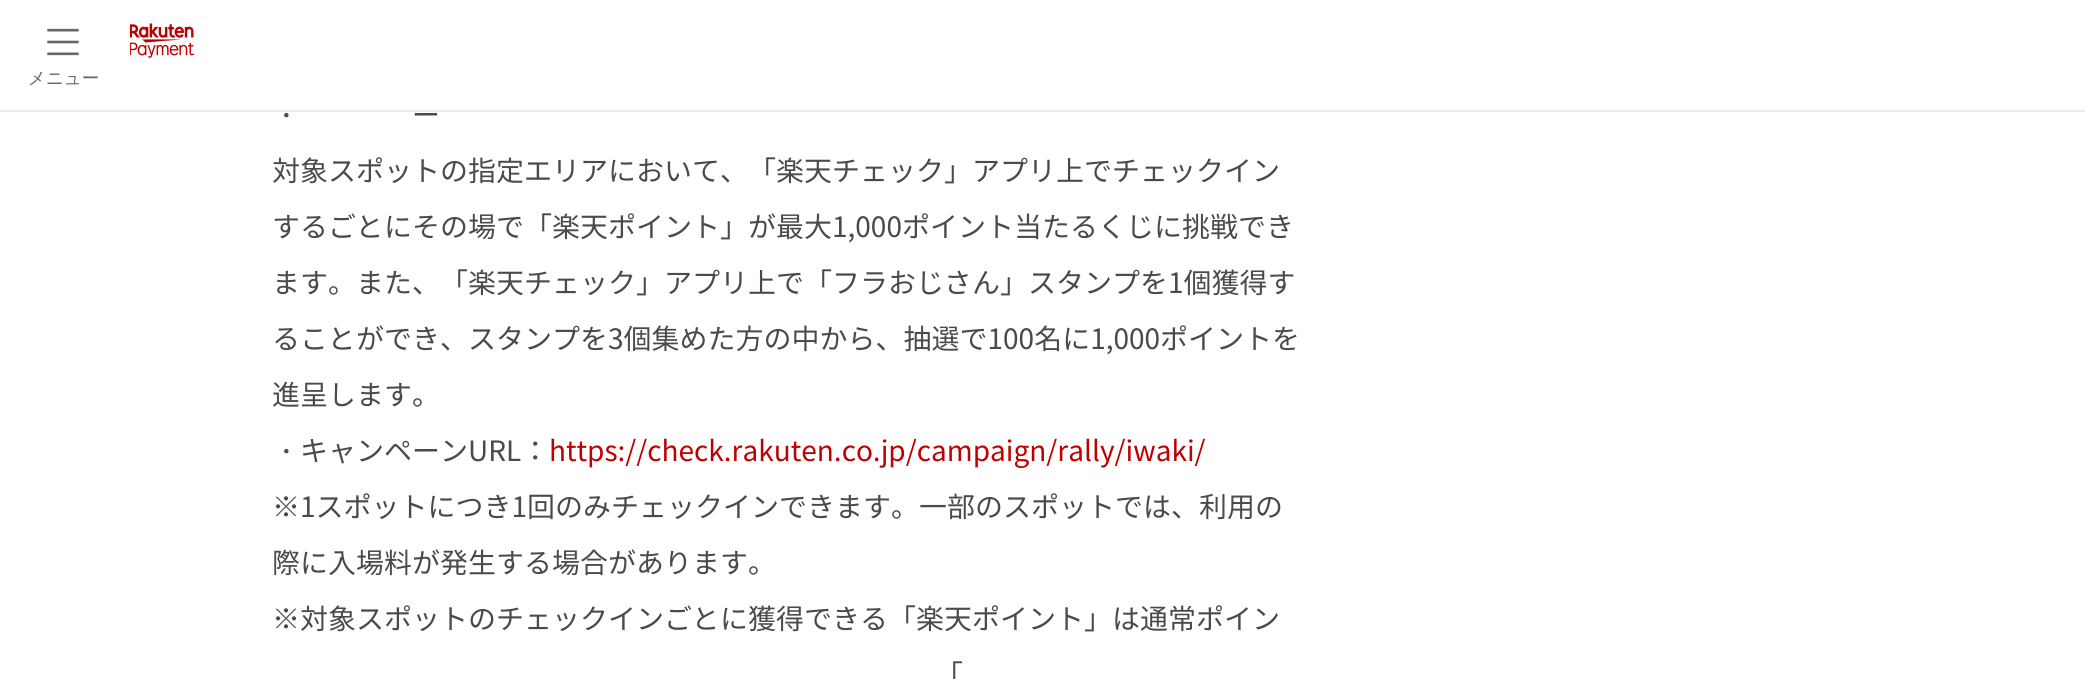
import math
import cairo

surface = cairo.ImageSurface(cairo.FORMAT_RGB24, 2085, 679)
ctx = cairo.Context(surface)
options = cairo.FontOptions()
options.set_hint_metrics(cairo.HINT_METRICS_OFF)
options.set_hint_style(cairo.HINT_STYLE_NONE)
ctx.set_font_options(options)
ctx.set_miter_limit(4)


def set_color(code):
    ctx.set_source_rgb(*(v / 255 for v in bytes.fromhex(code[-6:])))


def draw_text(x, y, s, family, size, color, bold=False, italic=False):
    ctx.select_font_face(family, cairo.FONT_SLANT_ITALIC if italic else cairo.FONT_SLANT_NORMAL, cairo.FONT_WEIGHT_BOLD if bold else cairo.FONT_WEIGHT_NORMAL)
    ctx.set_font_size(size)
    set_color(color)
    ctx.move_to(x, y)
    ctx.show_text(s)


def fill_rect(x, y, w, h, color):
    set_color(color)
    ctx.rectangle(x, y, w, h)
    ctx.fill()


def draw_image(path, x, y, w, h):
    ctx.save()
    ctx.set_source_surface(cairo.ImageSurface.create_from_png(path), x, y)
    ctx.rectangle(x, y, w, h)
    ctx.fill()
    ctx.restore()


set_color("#ffffff")
ctx.paint()
fill_rect(0, 110, 2085, 2, "#ebebeb")
draw_image("assets/img1.png", 130, 23, 65, 35)
draw_image("assets/img2.png", 47, 28, 32, 28)
draw_text(28, 84, "メニュー", "WenQuanYi Zen Hei Medium", 17.5, "#686868")
draw_text(272, 125, "・", "WenQuanYi Zen Hei Medium", 28, "#4a4a4a")
draw_text(412, 125, "ー", "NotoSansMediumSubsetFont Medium", 28, "#4a4a4a")
draw_text(272, 181, "対象スポットの指定エリアにおいて、「楽天チェック」アプリ上でチェックイン", "NotoSansMediumSubsetFont Medium", 28, "#4a4a4a")
draw_text(272, 237, "するごとにその場で「楽天ポイント」が最大1,000ポイント当たるくじに挑戦でき", "NotoSansMediumSubsetFont Medium", 28, "#4a4a4a")
draw_text(272, 293, "ます。また、「楽天チェック」アプリ上で「フラおじさん」スタンプを1個獲得す", "NotoSansMediumSubsetFont Medium", 28, "#4a4a4a")
draw_text(272, 349, "ることができ、スタンプを3個集めた方の中から、抽選で100名に1,000ポイントを", "NotoSansMediumSubsetFont Medium", 28, "#4a4a4a")
draw_text(272, 405, "進呈します。", "NotoSansMediumSubsetFont Medium", 28, "#4a4a4a")
draw_text(272, 461, "・", "WenQuanYi Zen Hei Medium", 28, "#4a4a4a")
draw_text(300, 461, "キャンペーンURL：", "NotoSansMediumSubsetFont Medium", 28, "#4a4a4a")
draw_text(549, 461, "https://check.rakuten.co.jp/campaign/rally/iwaki/", "NotoSansMediumSubsetFont Medium", 28, "#bf0000")
draw_text(272, 517, "※1スポットにつき1回のみチェックインできます。一部のスポットでは、利用の", "NotoSansMediumSubsetFont Medium", 28, "#4a4a4a")
draw_text(272, 573, "際に入場料が発生する場合があります。", "NotoSansMediumSubsetFont Medium", 28, "#4a4a4a")
draw_text(272, 629, "※対象スポットのチェックインごとに獲得できる「楽天ポイント」は通常ポイン", "NotoSansMediumSubsetFont Medium", 28, "#4a4a4a")
draw_text(935, 685, "「", "NotoSansMediumSubsetFont Medium", 28, "#4a4a4a")
surface.write_to_png("output.png")
